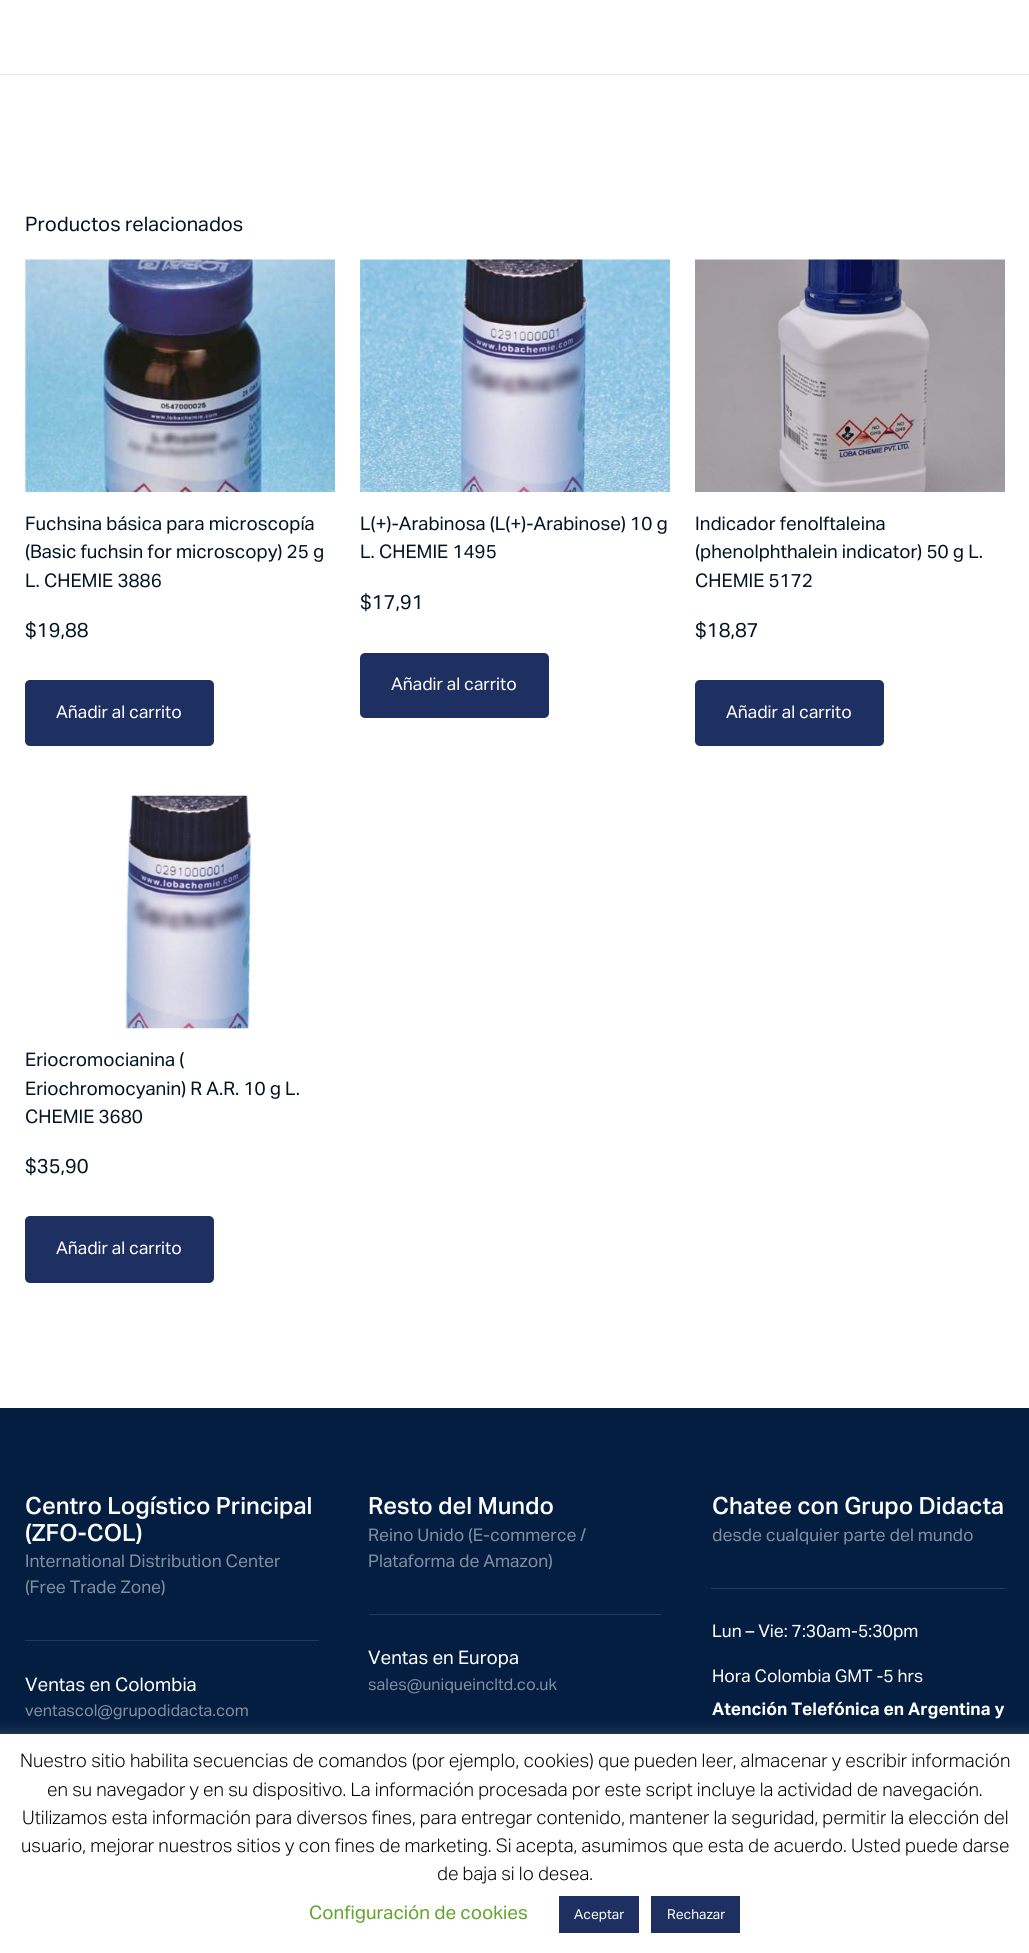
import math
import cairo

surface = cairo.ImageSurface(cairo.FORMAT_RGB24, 1029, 1953)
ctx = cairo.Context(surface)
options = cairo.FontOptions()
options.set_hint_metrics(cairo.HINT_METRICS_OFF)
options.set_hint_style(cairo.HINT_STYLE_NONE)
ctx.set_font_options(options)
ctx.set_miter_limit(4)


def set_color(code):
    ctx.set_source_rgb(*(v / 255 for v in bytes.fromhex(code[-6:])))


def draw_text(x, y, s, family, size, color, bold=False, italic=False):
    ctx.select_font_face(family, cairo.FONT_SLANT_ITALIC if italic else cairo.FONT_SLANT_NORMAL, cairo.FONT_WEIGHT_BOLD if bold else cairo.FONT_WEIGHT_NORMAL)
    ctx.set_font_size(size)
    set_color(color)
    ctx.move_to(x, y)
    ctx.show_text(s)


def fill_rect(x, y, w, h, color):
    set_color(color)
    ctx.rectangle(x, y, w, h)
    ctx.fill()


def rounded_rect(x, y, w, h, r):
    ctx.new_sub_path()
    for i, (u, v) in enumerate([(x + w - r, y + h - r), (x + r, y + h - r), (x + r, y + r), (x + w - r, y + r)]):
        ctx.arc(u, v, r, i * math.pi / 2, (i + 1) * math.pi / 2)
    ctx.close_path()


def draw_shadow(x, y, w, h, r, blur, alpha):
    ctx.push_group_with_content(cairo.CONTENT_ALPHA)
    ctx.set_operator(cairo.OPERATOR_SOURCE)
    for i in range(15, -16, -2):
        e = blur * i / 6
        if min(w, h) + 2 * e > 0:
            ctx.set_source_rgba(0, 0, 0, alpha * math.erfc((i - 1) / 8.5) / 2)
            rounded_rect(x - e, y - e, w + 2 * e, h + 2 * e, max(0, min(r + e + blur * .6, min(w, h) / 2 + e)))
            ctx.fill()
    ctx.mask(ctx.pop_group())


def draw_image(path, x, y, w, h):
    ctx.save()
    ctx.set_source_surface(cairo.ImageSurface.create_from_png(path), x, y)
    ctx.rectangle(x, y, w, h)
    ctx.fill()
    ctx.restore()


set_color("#ffffff")
ctx.paint()
fill_rect(0, 74, 1029, 1, "#e5e8ec")
draw_text(25, 231, "Productos relacionados", "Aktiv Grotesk", 20, "#021523")
draw_image("assets/img1.png", 25, 259, 310, 233)
draw_text(25, 530, "Fuchsina básica para microscopía", "Aktiv Grotesk", 18.75, "#021523")
draw_text(25, 558, "(Basic fuchsin for microscopy) 25 g", "Aktiv Grotesk", 18.75, "#021523")
draw_text(25, 587, "L. CHEMIE 3886", "Aktiv Grotesk", 18.75, "#021523")
draw_text(25, 637, "$19,88", "Aktiv Grotesk", 20, "#021523")
set_color("#1e3062")
rounded_rect(25, 680, 189, 66, 5)
ctx.fill()
draw_text(56, 718, "Añadir al carrito", "Aktiv Grotesk", 17.5, "#ffffff")
draw_image("assets/img2.png", 360, 259, 310, 233)
draw_text(360, 530, "L(+)-Arabinosa (L(+)-Arabinose) 10 g", "Aktiv Grotesk", 18.75, "#021523")
draw_text(360, 558, "L. CHEMIE 1495", "Aktiv Grotesk", 18.75, "#021523")
draw_text(360, 609, "$17,91", "Aktiv Grotesk", 20, "#021523")
set_color("#1e3062")
rounded_rect(360, 653, 189, 65, 5)
ctx.fill()
draw_text(391, 690, "Añadir al carrito", "Aktiv Grotesk", 17.5, "#ffffff")
draw_image("assets/img3.png", 695, 259, 310, 233)
draw_text(695, 530, "Indicador fenolftaleina", "Aktiv Grotesk", 18.75, "#021523")
draw_text(695, 558, "(phenolphthalein indicator) 50 g L.", "Aktiv Grotesk", 18.75, "#021523")
draw_text(695, 587, "CHEMIE 5172", "Aktiv Grotesk", 18.75, "#021523")
draw_text(695, 637, "$18,87", "Aktiv Grotesk", 20, "#021523")
set_color("#1e3062")
rounded_rect(695, 680, 189, 66, 5)
ctx.fill()
draw_text(726, 718, "Añadir al carrito", "Aktiv Grotesk", 17.5, "#ffffff")
draw_image("assets/img4.png", 125, 795, 127, 234)
draw_text(25, 1066, "Eriocromocianina (", "Aktiv Grotesk", 18.75, "#021523")
draw_text(25, 1095, "Eriochromocyanin) R A.R. 10 g L.", "Aktiv Grotesk", 18.75, "#021523")
draw_text(25, 1123, "CHEMIE 3680", "Aktiv Grotesk", 18.75, "#021523")
draw_text(25, 1173, "$35,90", "Aktiv Grotesk", 20, "#021523")
set_color("#1e3062")
rounded_rect(25, 1216, 189, 67, 5)
ctx.fill()
draw_text(56, 1254, "Añadir al carrito", "Aktiv Grotesk", 17.5, "#ffffff")
fill_rect(0, 1408, 1029, 326, "#041e42")
draw_text(25, 1514, "Centro Logístico Principal", "Aktiv Grotesk Medium", 23.75, "#ffffff")
draw_text(25, 1541, "(ZFO-COL)", "Aktiv Grotesk Medium", 23.75, "#ffffff")
draw_text(25, 1567, "International Distribution Center", "Aktiv Grotesk", 17.5, "#818ea0")
draw_text(25, 1593, "(Free Trade Zone)", "Aktiv Grotesk", 17.5, "#818ea0")
fill_rect(25, 1640, 294, 1, "#223959")
draw_text(25, 1691, "Ventas en Colombia", "Aktiv Grotesk", 18.75, "#ffffff")
draw_text(25, 1716, "ventascol@grupodidacta.com", "Aktiv Grotesk", 16.25, "#818ea0")
draw_text(368, 1514, "Resto del Mundo", "Aktiv Grotesk Medium", 23.75, "#ffffff")
draw_text(368, 1541, "Reino Unido (E-commerce /", "Aktiv Grotesk", 17.5, "#818ea0")
draw_text(368, 1567, "Plataforma de Amazon)", "Aktiv Grotesk", 17.5, "#818ea0")
fill_rect(369, 1614, 292, 1, "#223959")
draw_text(368, 1664, "Ventas en Europa", "Aktiv Grotesk", 18.75, "#ffffff")
draw_text(368, 1690, "sales@uniqueincltd.co.uk", "Aktiv Grotesk", 16.25, "#818ea0")
draw_text(712, 1514, "Chatee con Grupo Didacta", "Aktiv Grotesk Medium", 23.75, "#ffffff")
draw_text(712, 1541, "desde cualquier parte del mundo", "Aktiv Grotesk", 17.5, "#818ea0")
fill_rect(711, 1588, 294, 1, "#223959")
draw_text(712, 1637, "Lun – Vie: 7:30am-5:30pm", "Aktiv Grotesk", 17.5, "#ffffff")
draw_text(712, 1682, "Hora Colombia GMT -5 hrs", "Aktiv Grotesk", 17.5, "#ffffff")
draw_text(712, 1715, "Atención Telefónica en Argentina y", "Aktiv Grotesk", 17.5, "#ffffff", bold=True)
set_color("#acabab")
draw_shadow(0, 1733, 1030, 220, 0, 6, 0.3)
fill_rect(0, 1734, 1029, 219, "#ffffff")
draw_text(20, 1767, "Nuestro sitio habilita secuencias de comandos (por ejemplo, cookies) que pueden leer, almacenar y escribir información", "Aktiv Grotesk Light", 18.75, "#000000")
draw_text(47, 1796, "en su navegador y en su dispositivo. La información procesada por este script incluye la actividad de navegación.", "Aktiv Grotesk Light", 18.75, "#000000")
draw_text(22, 1824, "Utilizamos esta información para diversos fines, para entregar contenido, mantener la seguridad, permitir la elección del", "Aktiv Grotesk Light", 18.75, "#000000")
draw_text(21, 1852, "usuario, mejorar nuestros sitios y con fines de marketing. Si acepta, asumimos que esta de acuerdo. Usted puede darse", "Aktiv Grotesk Light", 18.75, "#000000")
draw_text(437, 1880, "de baja si lo desea.", "Aktiv Grotesk Light", 18.75, "#000000")
draw_text(309, 1919, "Configuración de cookies", "Aktiv Grotesk", 18.75, "#62a329")
fill_rect(559, 1896, 80, 37, "#1e3062")
draw_text(574, 1919, "Aceptar", "Aktiv Grotesk", 13.75, "#ffffff")
fill_rect(651, 1896, 89, 37, "#1e3062")
draw_text(667, 1919, "Rechazar", "Aktiv Grotesk", 13.75, "#ffffff")
surface.write_to_png("output.png")
